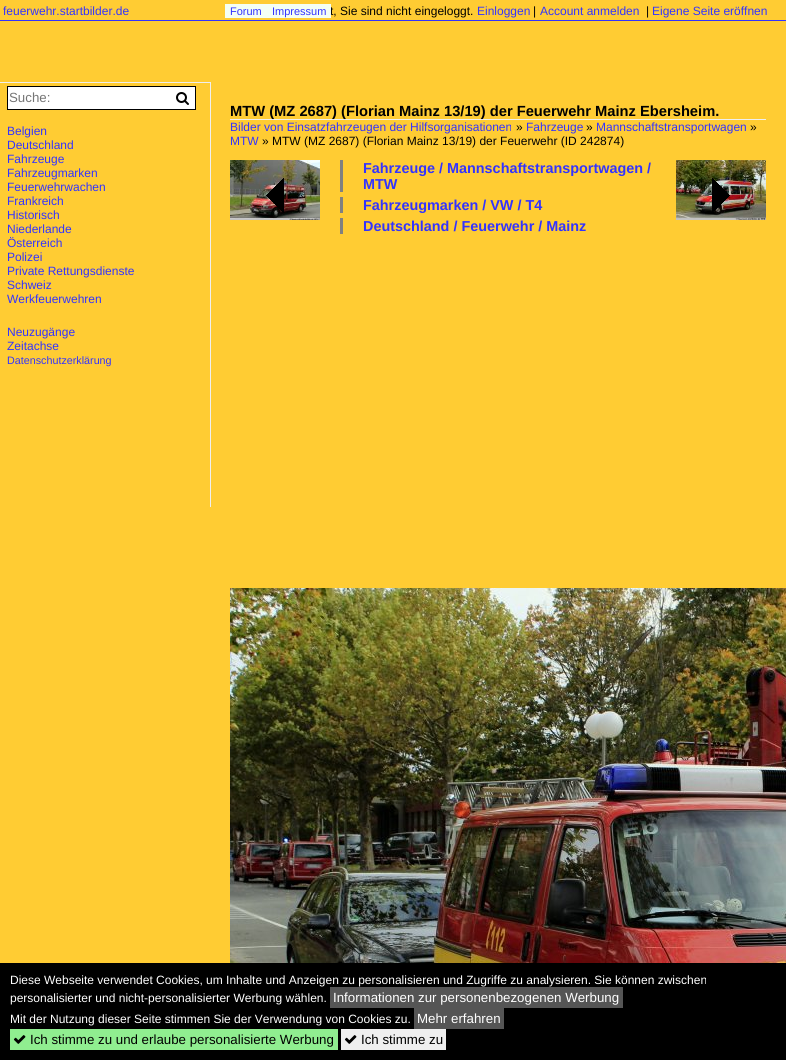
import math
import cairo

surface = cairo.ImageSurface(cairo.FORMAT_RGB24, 786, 1060)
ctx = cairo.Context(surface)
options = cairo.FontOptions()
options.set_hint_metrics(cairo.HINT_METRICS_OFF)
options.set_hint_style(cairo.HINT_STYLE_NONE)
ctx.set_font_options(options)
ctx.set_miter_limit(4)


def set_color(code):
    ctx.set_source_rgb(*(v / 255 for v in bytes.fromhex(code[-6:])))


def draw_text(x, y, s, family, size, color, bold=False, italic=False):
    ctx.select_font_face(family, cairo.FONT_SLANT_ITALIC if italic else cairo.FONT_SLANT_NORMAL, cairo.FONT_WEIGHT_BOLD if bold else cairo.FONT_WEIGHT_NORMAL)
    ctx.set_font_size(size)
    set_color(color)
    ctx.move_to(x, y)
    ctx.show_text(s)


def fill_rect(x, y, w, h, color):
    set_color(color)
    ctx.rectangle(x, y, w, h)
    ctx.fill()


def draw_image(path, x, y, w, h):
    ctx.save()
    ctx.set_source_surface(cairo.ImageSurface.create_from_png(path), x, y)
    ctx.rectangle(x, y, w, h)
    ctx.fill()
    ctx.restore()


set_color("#ffcc33")
ctx.paint()
draw_text(3, 15, "feuerwehr.startbilder.de", "Liberation Sans", 12, "#3333ff")
draw_text(330, 15, "t, Sie sind nicht eingeloggt.", "Liberation Sans", 12, "#000000")
fill_rect(225, 4, 106, 14, "#f4fff4")
draw_text(230, 15, "Forum", "Liberation Sans", 11, "#3333ff")
draw_text(272, 15, "Impressum", "Liberation Sans", 11, "#3333ff")
draw_text(477, 15, "Einloggen", "Liberation Sans", 12, "#3333ff")
draw_text(533, 15, "|", "Liberation Sans", 12, "#000000")
draw_text(540, 15, "Account anmelden", "Liberation Sans", 12, "#3333ff")
draw_text(646, 15, "|", "Liberation Sans", 12, "#000000")
draw_text(652, 15, "Eigene Seite eröffnen", "Liberation Sans", 12, "#3333ff")
fill_rect(0, 20, 786, 1, "#3333ff")
fill_rect(0, 82, 211, 1, "#efefef")
fill_rect(210, 82, 1, 425, "#efefef")
fill_rect(8, 87, 187, 22, "#ffffff")
fill_rect(7, 86, 189, 1, "#000000")
fill_rect(7, 109, 163, 1, "#000000")
fill_rect(7, 86, 1, 24, "#000000")
draw_text(9, 102, "Suche:", "Liberation Sans", 13.3, "#757575")
fill_rect(195, 86, 1, 24, "#000000")
fill_rect(170, 109, 26, 1, "#000000")
draw_image("assets/img1.png", 176, 92, 13, 13)
draw_text(7, 135, "Belgien", "Liberation Sans", 12, "#3333ff")
draw_text(7, 149, "Deutschland", "Liberation Sans", 12, "#3333ff")
draw_text(7, 163, "Fahrzeuge", "Liberation Sans", 12, "#3333ff")
draw_text(7, 177, "Fahrzeugmarken", "Liberation Sans", 12, "#3333ff")
draw_text(7, 191, "Feuerwehrwachen", "Liberation Sans", 12, "#3333ff")
draw_text(7, 205, "Frankreich", "Liberation Sans", 12, "#3333ff")
draw_text(7, 219, "Historisch", "Liberation Sans", 12, "#3333ff")
draw_text(7, 233, "Niederlande", "Liberation Sans", 12, "#3333ff")
draw_text(7, 247, "Österreich", "Liberation Sans", 12, "#3333ff")
draw_text(7, 261, "Polizei", "Liberation Sans", 12, "#3333ff")
draw_text(7, 275, "Private Rettungsdienste", "Liberation Sans", 12, "#3333ff")
draw_text(7, 289, "Schweiz", "Liberation Sans", 12, "#3333ff")
draw_text(7, 303, "Werkfeuerwehren", "Liberation Sans", 12, "#3333ff")
draw_text(7, 336, "Neuzugänge", "Liberation Sans", 12, "#3333ff")
draw_text(7, 350, "Zeitachse", "Liberation Sans", 12, "#3333ff")
draw_text(7, 364, "Datenschutzerklärung", "Liberation Sans", 10.75, "#3333ff")
fill_rect(230, 119, 536, 1, "#efefef")
draw_text(230, 116, "MTW (MZ 2687) (Florian Mainz 13/19) der Feuerwehr Mainz Ebersheim.", "Liberation Sans", 14.7, "#000000", bold=True)
draw_text(230, 131, "Bilder von Einsatzfahrzeugen der Hilfsorganisationen", "Liberation Sans", 12, "#3333ff")
draw_text(516, 131, "»", "Liberation Sans", 12, "#000000")
draw_text(526, 131, "Fahrzeuge", "Liberation Sans", 12, "#3333ff")
draw_text(586, 131, "»", "Liberation Sans", 12, "#000000")
draw_text(596, 131, "Mannschaftstransportwagen", "Liberation Sans", 12, "#3333ff")
draw_text(750, 131, "»", "Liberation Sans", 12, "#000000")
draw_text(230, 145, "MTW", "Liberation Sans", 12, "#3333ff")
draw_text(262, 145, "» MTW (MZ 2687) (Florian Mainz 13/19) der Feuerwehr (ID 242874)", "Liberation Sans", 12, "#000000")
draw_image("assets/img2.png", 230, 160, 90, 60)
draw_image("assets/img3.png", 266, 178, 18, 35)
fill_rect(340, 160, 3, 32, "#808080")
draw_text(363, 173, "Fahrzeuge / Mannschaftstransportwagen /", "Liberation Sans", 14.4, "#3333ff", bold=True)
draw_text(363, 189, "MTW", "Liberation Sans", 14.4, "#3333ff", bold=True)
fill_rect(340, 197, 3, 16, "#808080")
draw_text(363, 210, "Fahrzeugmarken / VW / T4", "Liberation Sans", 14.4, "#3333ff", bold=True)
fill_rect(340, 218, 3, 16, "#808080")
draw_text(363, 231, "Deutschland / Feuerwehr / Mainz", "Liberation Sans", 14.4, "#3333ff", bold=True)
draw_image("assets/img4.png", 676, 160, 90, 60)
draw_image("assets/img5.png", 712, 178, 18, 33)
draw_image("assets/img6.png", 230, 588, 556, 375)
fill_rect(0, 963, 786, 97, "#000000")
draw_text(10, 984, "Diese Webseite verwendet Cookies, um Inhalte und Anzeigen zu personalisieren und Zugriffe zu analysieren. Sie können zwischen", "Liberation Sans", 12, "#ffffff")
draw_text(10, 1002, "personalisierter und nicht-personalisierter Werbung wählen.", "Liberation Sans", 12, "#ffffff")
fill_rect(330, 987, 293, 21, "#555555")
draw_text(333, 1002, "Informationen zur personenbezogenen Werbung", "Liberation Sans", 13.3, "#ffffff")
draw_text(10, 1023, "Mit der Nutzung dieser Seite stimmen Sie der Verwendung von Cookies zu.", "Liberation Sans", 12, "#ffffff")
fill_rect(414, 1008, 90, 21, "#555555")
draw_text(417, 1023, "Mehr erfahren", "Liberation Sans", 13.3, "#ffffff")
fill_rect(10, 1029, 328, 21, "#90ee90")
draw_image("assets/img7.png", 13, 1035, 13, 9)
draw_text(30, 1044, "Ich stimme zu und erlaube personalisierte Werbung", "Liberation Sans", 13.3, "#000000")
fill_rect(341, 1029, 105, 21, "#efefef")
draw_image("assets/img8.png", 344, 1035, 13, 9)
draw_text(361, 1044, "Ich stimme zu", "Liberation Sans", 13.3, "#000000")
surface.write_to_png("output.png")
